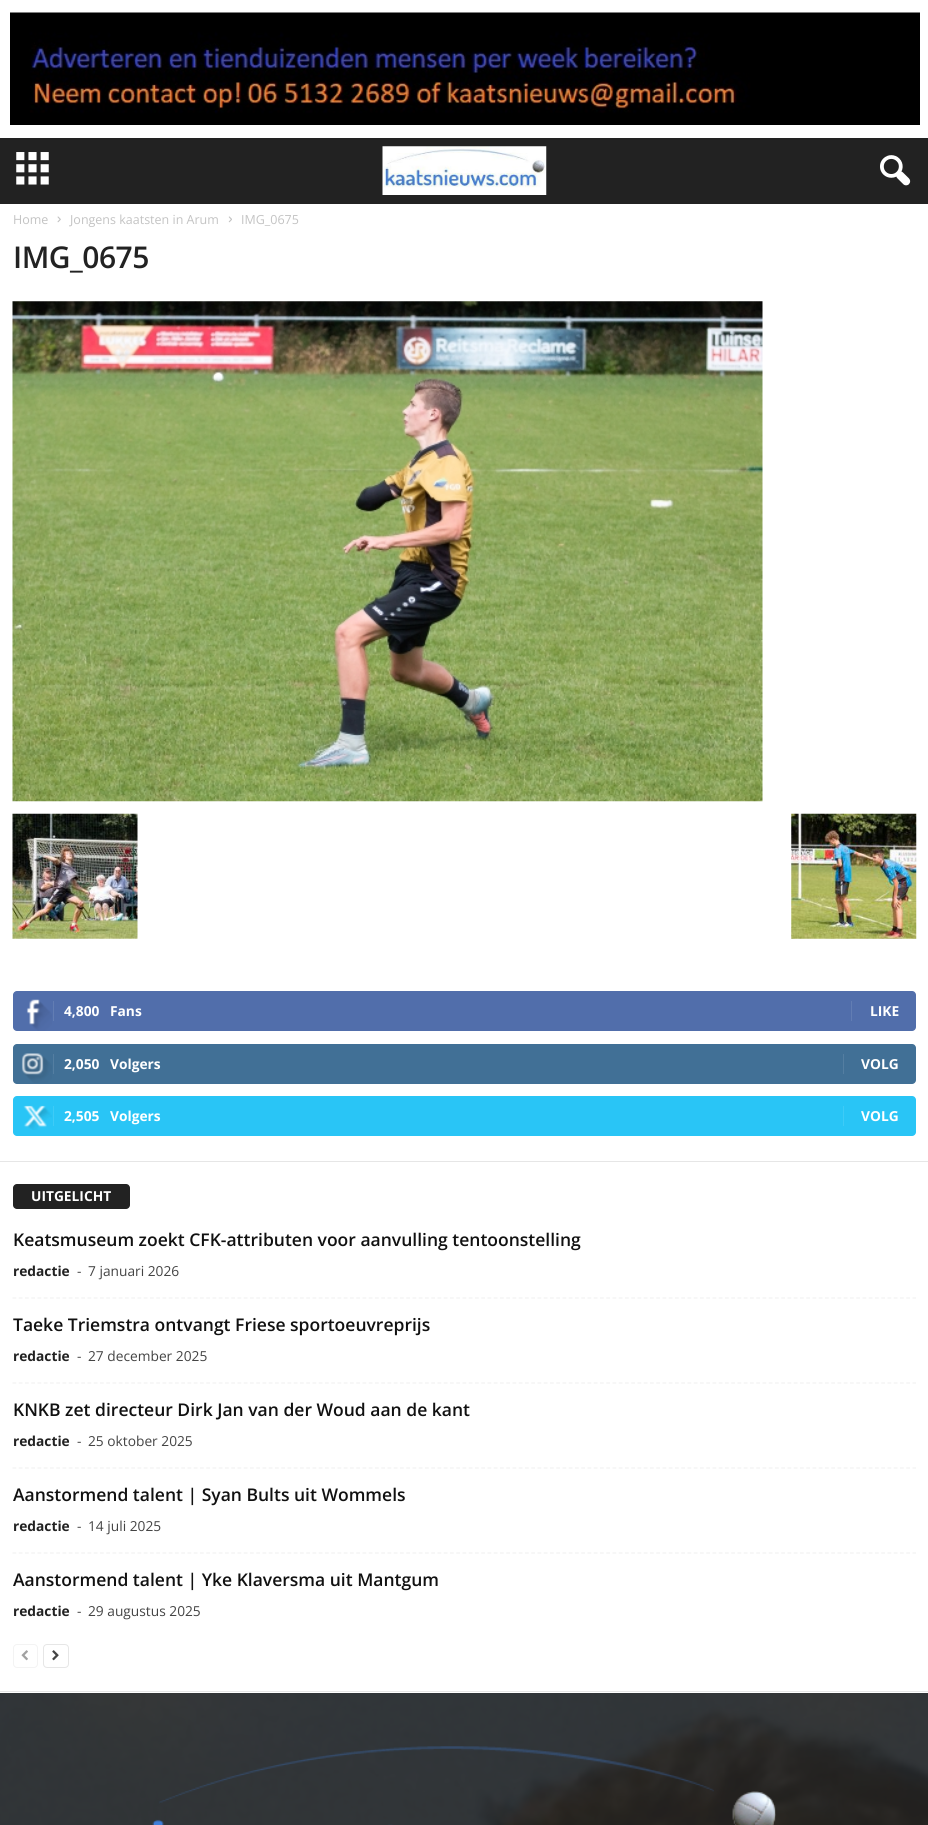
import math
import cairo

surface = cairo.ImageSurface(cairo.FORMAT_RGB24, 928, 1825)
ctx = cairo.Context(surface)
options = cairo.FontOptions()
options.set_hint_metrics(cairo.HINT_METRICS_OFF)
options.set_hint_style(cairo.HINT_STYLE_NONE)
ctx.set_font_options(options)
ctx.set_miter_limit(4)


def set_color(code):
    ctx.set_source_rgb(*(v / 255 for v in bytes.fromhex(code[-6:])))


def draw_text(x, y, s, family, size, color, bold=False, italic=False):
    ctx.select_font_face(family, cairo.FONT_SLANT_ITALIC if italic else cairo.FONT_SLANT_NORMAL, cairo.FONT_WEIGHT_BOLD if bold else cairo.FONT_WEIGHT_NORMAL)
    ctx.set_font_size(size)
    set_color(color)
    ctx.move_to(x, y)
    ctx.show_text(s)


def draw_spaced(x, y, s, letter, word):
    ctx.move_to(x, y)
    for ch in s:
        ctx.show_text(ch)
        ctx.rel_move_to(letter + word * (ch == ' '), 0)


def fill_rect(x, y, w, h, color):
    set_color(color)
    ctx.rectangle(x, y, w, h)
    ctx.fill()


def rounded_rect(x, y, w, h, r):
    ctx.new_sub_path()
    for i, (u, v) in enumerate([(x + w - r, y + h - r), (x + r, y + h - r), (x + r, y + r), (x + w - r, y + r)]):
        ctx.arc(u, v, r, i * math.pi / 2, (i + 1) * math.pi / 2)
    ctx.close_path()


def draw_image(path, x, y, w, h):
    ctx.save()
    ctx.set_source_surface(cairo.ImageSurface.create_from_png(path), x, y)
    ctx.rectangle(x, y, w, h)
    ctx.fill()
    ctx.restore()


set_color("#ffffff")
ctx.paint()
draw_image("assets/img1.png", 10, 12, 910, 113)
fill_rect(0, 138, 928, 66, "#222222")
draw_image("assets/img2.png", 16, 152, 33, 33)
draw_image("assets/img3.png", 382, 146, 165, 49)
draw_image("assets/img4.png", 880, 155, 31, 31)
fill_rect(0, 1691, 928, 1, "#e6e6e6")
draw_text(13, 224, "Home", "Open Sans", 12.5, "#c3c3c3")
draw_image("assets/img5.png", 57, 216, 4, 7)
draw_text(70, 224, "Jongens kaatsten in Arum", "Open Sans", 12.5, "#c3c3c3")
draw_image("assets/img6.png", 228, 216, 4, 7)
draw_text(241, 224, "IMG_0675", "Open Sans", 12.5, "#c3c3c3")
ctx.select_font_face("Open Sans SemiBold")
ctx.set_font_size(30)
set_color("#222222")
draw_spaced(13, 268, "IMG_0675", -0.5, 0)
draw_image("assets/img7.png", 12, 301, 751, 501)
draw_image("assets/img8.png", 12, 813, 126, 126)
draw_image("assets/img9.png", 791, 813, 126, 126)
set_color("#516eab")
rounded_rect(13, 991, 903, 40, 4)
ctx.fill()
draw_image("assets/img10.png", 26, 999, 26, 32)
fill_rect(53, 1001, 1, 20, "#627db3")
draw_text(64, 1016, "4,800", "Open Sans", 13.75, "#ffffff", bold=True)
draw_text(110, 1016, "Fans", "Open Sans", 13.75, "#ffffff", bold=True)
fill_rect(851, 1001, 1, 20, "#627db3")
draw_text(870, 1016, "LIKE", "Open Sans", 13.75, "#ffffff", bold=True)
set_color("#417096")
rounded_rect(13, 1044, 903, 40, 4)
ctx.fill()
draw_image("assets/img11.png", 21, 1053, 31, 30)
fill_rect(53, 1054, 1, 20, "#547ea1")
draw_text(64, 1069, "2,050", "Open Sans", 13.75, "#ffffff", bold=True)
draw_text(110, 1069, "Volgers", "Open Sans", 13.75, "#ffffff", bold=True)
fill_rect(843, 1054, 1, 20, "#547ea1")
draw_text(861, 1069, "VOLG", "Open Sans", 13.75, "#ffffff", bold=True)
set_color("#29c5f6")
rounded_rect(13, 1096, 903, 40, 4)
ctx.fill()
draw_image("assets/img12.png", 23, 1105, 29, 25)
fill_rect(53, 1106, 1, 20, "#3ecbf7")
draw_text(64, 1121, "2,505", "Open Sans", 13.75, "#ffffff", bold=True)
draw_text(110, 1121, "Volgers", "Open Sans", 13.75, "#ffffff", bold=True)
fill_rect(843, 1106, 1, 20, "#3ecbf7")
draw_text(861, 1121, "VOLG", "Open Sans", 13.75, "#ffffff", bold=True)
fill_rect(0, 1161, 928, 1, "#e6e6e6")
set_color("#222222")
rounded_rect(13, 1184, 117, 25, 4)
ctx.fill()
draw_text(31, 1201, "UITGELICHT", "Open Sans", 13.75, "#ffffff", bold=True)
ctx.new_path()
ctx.move_to(12.5, 1298)
ctx.line_to(916, 1298)
set_color("#f1f1f1")
ctx.set_line_width(1.2)
ctx.set_dash([3.75, 2.5])
ctx.stroke()
draw_text(13, 1246, "Keatsmuseum zoekt CFK-attributen voor aanvulling tentoonstelling", "Open Sans SemiBold", 17.5, "#111111")
draw_text(13, 1276, "redactie", "Open Sans", 13.75, "#222222", bold=True)
draw_text(77, 1276, "-", "Open Sans", 13.75, "#444444")
draw_text(88, 1276, "7 januari 2026", "Open Sans", 13.75, "#444444")
ctx.new_path()
ctx.move_to(12.5, 1383)
ctx.line_to(916, 1383)
set_color("#f1f1f1")
ctx.stroke()
draw_text(13, 1331, "Taeke Triemstra ontvangt Friese sportoeuvreprijs", "Open Sans SemiBold", 17.5, "#111111")
draw_text(13, 1361, "redactie", "Open Sans", 13.75, "#222222", bold=True)
draw_text(77, 1361, "-", "Open Sans", 13.75, "#444444")
draw_text(88, 1361, "27 december 2025", "Open Sans", 13.75, "#444444")
ctx.new_path()
ctx.move_to(12.5, 1468)
ctx.line_to(916, 1468)
set_color("#f1f1f1")
ctx.stroke()
draw_text(13, 1416, "KNKB zet directeur Dirk Jan van der Woud aan de kant", "Open Sans SemiBold", 17.5, "#111111")
draw_text(13, 1446, "redactie", "Open Sans", 13.75, "#222222", bold=True)
draw_text(77, 1446, "-", "Open Sans", 13.75, "#444444")
draw_text(88, 1446, "25 oktober 2025", "Open Sans", 13.75, "#444444")
ctx.new_path()
ctx.move_to(12.5, 1553)
ctx.line_to(916, 1553)
set_color("#f1f1f1")
ctx.stroke()
draw_text(13, 1501, "Aanstormend talent | Syan Bults uit Wommels", "Open Sans SemiBold", 17.5, "#111111")
draw_text(13, 1531, "redactie", "Open Sans", 13.75, "#222222", bold=True)
draw_text(77, 1531, "-", "Open Sans", 13.75, "#444444")
draw_text(88, 1531, "14 juli 2025", "Open Sans", 13.75, "#444444")
draw_text(13, 1586, "Aanstormend talent | Yke Klaversma uit Mantgum", "Open Sans SemiBold", 17.5, "#111111")
draw_text(13, 1616, "redactie", "Open Sans", 13.75, "#222222", bold=True)
draw_text(77, 1616, "-", "Open Sans", 13.75, "#444444")
draw_text(88, 1616, "29 augustus 2025", "Open Sans", 13.75, "#444444")
rounded_rect(13.5, 1644.5, 24, 23, 3.5)
set_color("#f3f3f3")
ctx.set_line_width(1)
ctx.set_dash([])
ctx.stroke()
draw_image("assets/img13.png", 21, 1650, 7, 11)
rounded_rect(43.5, 1644.5, 25, 23, 3.5)
set_color("#e6e6e6")
ctx.stroke()
draw_image("assets/img14.png", 52, 1650, 7, 11)
fill_rect(0, 1693, 928, 132, "#222222")
draw_image("assets/img15.png", 0, 1693, 928, 132)
draw_image("assets/img16.png", 152, 1746, 624, 79)
surface.write_to_png("output.png")
